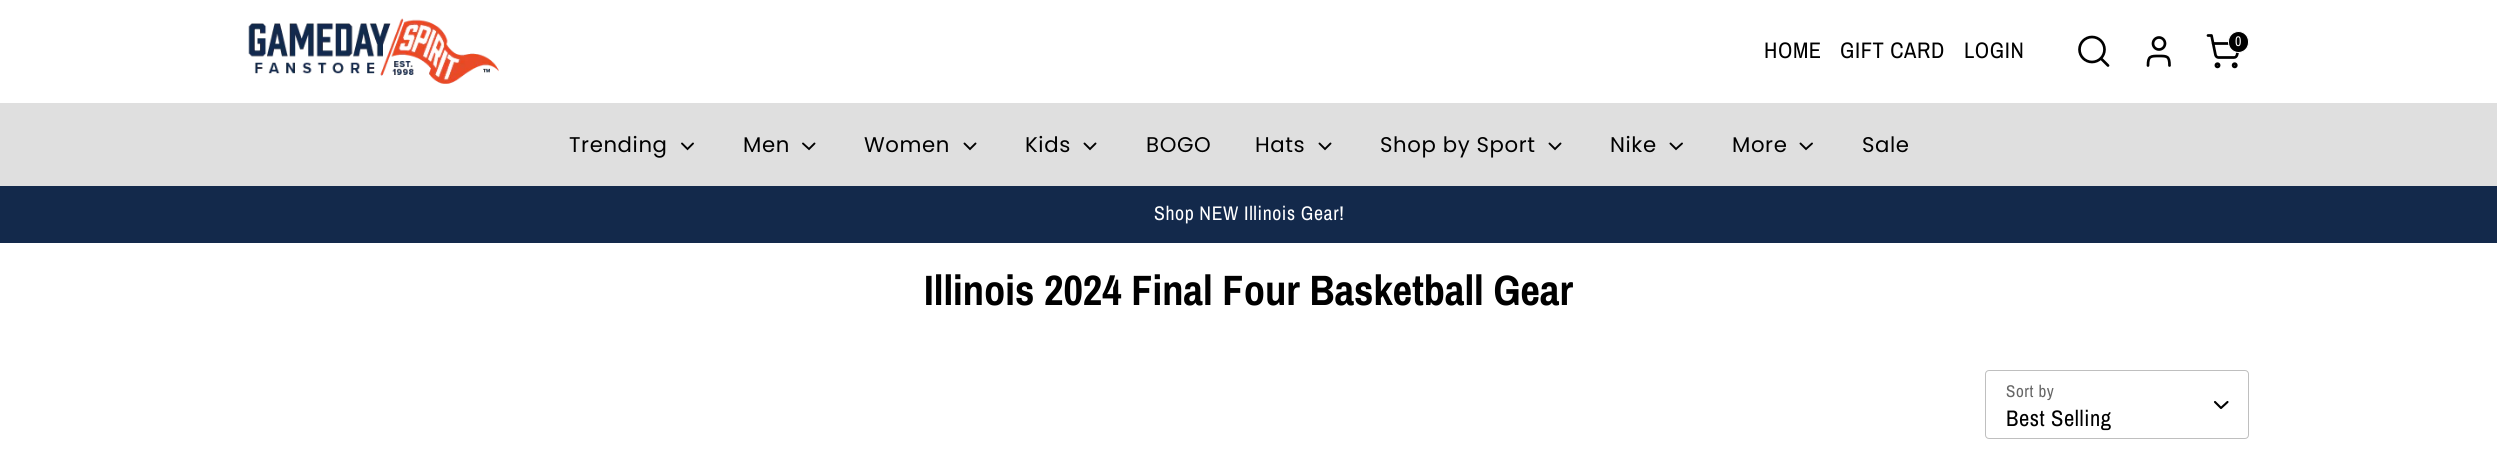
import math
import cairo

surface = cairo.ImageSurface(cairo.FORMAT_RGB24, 2497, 469)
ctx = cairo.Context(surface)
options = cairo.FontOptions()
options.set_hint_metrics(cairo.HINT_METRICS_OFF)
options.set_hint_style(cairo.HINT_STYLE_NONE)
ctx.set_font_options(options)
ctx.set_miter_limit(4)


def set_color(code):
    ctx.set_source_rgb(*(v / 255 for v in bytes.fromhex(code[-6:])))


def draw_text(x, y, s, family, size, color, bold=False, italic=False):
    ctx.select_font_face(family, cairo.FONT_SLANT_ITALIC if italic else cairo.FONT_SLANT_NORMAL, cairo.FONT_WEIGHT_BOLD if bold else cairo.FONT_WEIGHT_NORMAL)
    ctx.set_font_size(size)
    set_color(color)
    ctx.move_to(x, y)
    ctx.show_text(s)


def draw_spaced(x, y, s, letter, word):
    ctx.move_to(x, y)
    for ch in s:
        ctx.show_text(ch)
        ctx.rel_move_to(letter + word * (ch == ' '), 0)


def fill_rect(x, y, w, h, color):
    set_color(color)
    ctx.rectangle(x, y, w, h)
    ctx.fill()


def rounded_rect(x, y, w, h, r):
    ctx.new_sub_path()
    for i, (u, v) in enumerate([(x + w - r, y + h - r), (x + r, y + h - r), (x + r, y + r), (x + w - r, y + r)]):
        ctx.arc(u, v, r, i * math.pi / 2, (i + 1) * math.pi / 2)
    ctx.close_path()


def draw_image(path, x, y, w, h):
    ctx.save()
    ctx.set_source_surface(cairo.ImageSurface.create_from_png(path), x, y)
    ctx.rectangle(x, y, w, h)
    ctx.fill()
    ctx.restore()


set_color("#ffffff")
ctx.paint()
draw_image("assets/img1.png", 248, 18, 251, 66)
ctx.select_font_face("Archivo Narrow")
ctx.set_font_size(22.5)
set_color("#000000")
draw_spaced(1764, 58, "HOME", 0.6, 0)
draw_spaced(1840, 58, "GIFT CARD", 0.6, 0)
draw_spaced(1964, 58, "LOGIN", 0.6, 0)
ctx.new_path()
ctx.arc(2092, 49.5, 12.5, 0, 2 * math.pi)
ctx.set_line_width(2.7)
ctx.stroke()
ctx.new_path()
ctx.move_to(2108, 65.5)
ctx.line_to(2101, 58.5)
ctx.set_line_cap(cairo.LINE_CAP_ROUND)
ctx.set_line_join(cairo.LINE_JOIN_ROUND)
ctx.stroke()
ctx.new_path()
ctx.move_to(2169.5, 65.5)
ctx.curve_to(2169.5, 56, 2167, 56, 2159, 56)
ctx.curve_to(2150.5, 56, 2148, 56, 2148, 65.5)
ctx.stroke()
ctx.arc(2159, 43.5, 6, 0, 2 * math.pi)
ctx.set_line_cap(cairo.LINE_CAP_BUTT)
ctx.set_line_join(cairo.LINE_JOIN_MITER)
ctx.stroke()
ctx.arc(2217.5, 65.3, 1.6, 0, 2 * math.pi)
ctx.stroke()
ctx.arc(2234.7, 65.3, 1.6, 0, 2 * math.pi)
ctx.stroke()
ctx.new_path()
ctx.move_to(2208, 35.5)
ctx.line_to(2211.5, 35.5)
ctx.line_to(2215.5, 55)
ctx.curve_to(2216, 56.5, 2217, 57.5, 2218.5, 57.5)
ctx.line_to(2234, 57.5)
ctx.curve_to(2235.5, 57.5, 2236.5, 56.5, 2237, 55)
ctx.line_to(2239.5, 43.5)
ctx.line_to(2213, 43.5)
ctx.set_line_cap(cairo.LINE_CAP_ROUND)
ctx.set_line_join(cairo.LINE_JOIN_ROUND)
ctx.stroke()
rounded_rect(2228.5, 31.5, 20, 21, 10)
ctx.fill_preserve()
set_color("#ffffff")
ctx.set_line_width(1)
ctx.set_line_cap(cairo.LINE_CAP_BUTT)
ctx.set_line_join(cairo.LINE_JOIN_MITER)
ctx.stroke()
draw_text(2235, 46, "0", "Archivo Narrow", 14, "#ffffff")
fill_rect(0, 103, 2497, 83, "#dfdfdf")
ctx.select_font_face("Poppins")
ctx.set_font_size(21.25)
set_color("#000000")
draw_spaced(569, 152, "Trending", 0.6, 0)
ctx.new_path()
ctx.move_to(682, 143.5)
ctx.line_to(687.5, 149)
ctx.line_to(693, 143.5)
ctx.set_line_width(1.9)
ctx.set_line_cap(cairo.LINE_CAP_ROUND)
ctx.stroke()
draw_spaced(743, 152, "Men", 0.6, 0)
ctx.new_path()
ctx.move_to(803, 143.5)
ctx.line_to(809, 149)
ctx.line_to(814.5, 143.5)
ctx.stroke()
draw_spaced(864, 152, "Women", 0.6, 0)
ctx.new_path()
ctx.move_to(964.5, 143.5)
ctx.line_to(970, 149)
ctx.line_to(975.5, 143.5)
ctx.stroke()
draw_spaced(1025, 152, "Kids", 0.6, 0)
ctx.new_path()
ctx.move_to(1084.5, 143.5)
ctx.line_to(1090, 149)
ctx.line_to(1095.5, 143.5)
ctx.stroke()
draw_spaced(1146, 152, "BOGO", 0.6, 0)
draw_spaced(1255, 152, "Hats", 0.6, 0)
ctx.new_path()
ctx.move_to(1319.5, 143.5)
ctx.line_to(1325, 149)
ctx.line_to(1330.5, 143.5)
ctx.stroke()
draw_spaced(1380, 152, "Shop by Sport", 0.6, 0)
ctx.new_path()
ctx.move_to(1549.5, 143.5)
ctx.line_to(1555, 149)
ctx.line_to(1560.5, 143.5)
ctx.stroke()
draw_spaced(1610, 152, "Nike", 0.6, 0)
ctx.new_path()
ctx.move_to(1670.5, 143.5)
ctx.line_to(1676, 149)
ctx.line_to(1682, 143.5)
ctx.stroke()
draw_spaced(1732, 152, "More", 0.6, 0)
ctx.new_path()
ctx.move_to(1800.5, 143.5)
ctx.line_to(1806, 149)
ctx.line_to(1812, 143.5)
ctx.stroke()
draw_spaced(1862, 152, "Sale", 0.6, 0)
fill_rect(0, 186, 2497, 57, "#13294b")
ctx.select_font_face("Archivo Narrow")
ctx.set_font_size(19.75)
set_color("#ffffff")
draw_spaced(1154, 220, "Shop NEW Illinois Gear!", 0.6, 0)
draw_text(924, 305, "Illinois 2024 Final Four Basketball Gear", "Archivo Narrow", 42.5, "#000000", bold=True)
rounded_rect(1985.5, 370.5, 263, 68, 3.5)
set_color("#bfbfbf")
ctx.set_line_width(1)
ctx.set_line_cap(cairo.LINE_CAP_BUTT)
ctx.stroke()
ctx.select_font_face("Archivo Narrow")
ctx.set_font_size(17)
set_color("#666666")
draw_spaced(2006, 397, "Sort by", 0.6, 0)
ctx.new_path()
ctx.move_to(2215, 402)
ctx.line_to(2221, 408)
ctx.line_to(2227.5, 402)
set_color("#000000")
ctx.set_line_width(2.1)
ctx.set_line_cap(cairo.LINE_CAP_ROUND)
ctx.set_line_join(cairo.LINE_JOIN_ROUND)
ctx.stroke()
ctx.set_font_size(22.5)
draw_spaced(2006, 426, "Best Selling", 0.6, 0)
surface.write_to_png("output.png")
